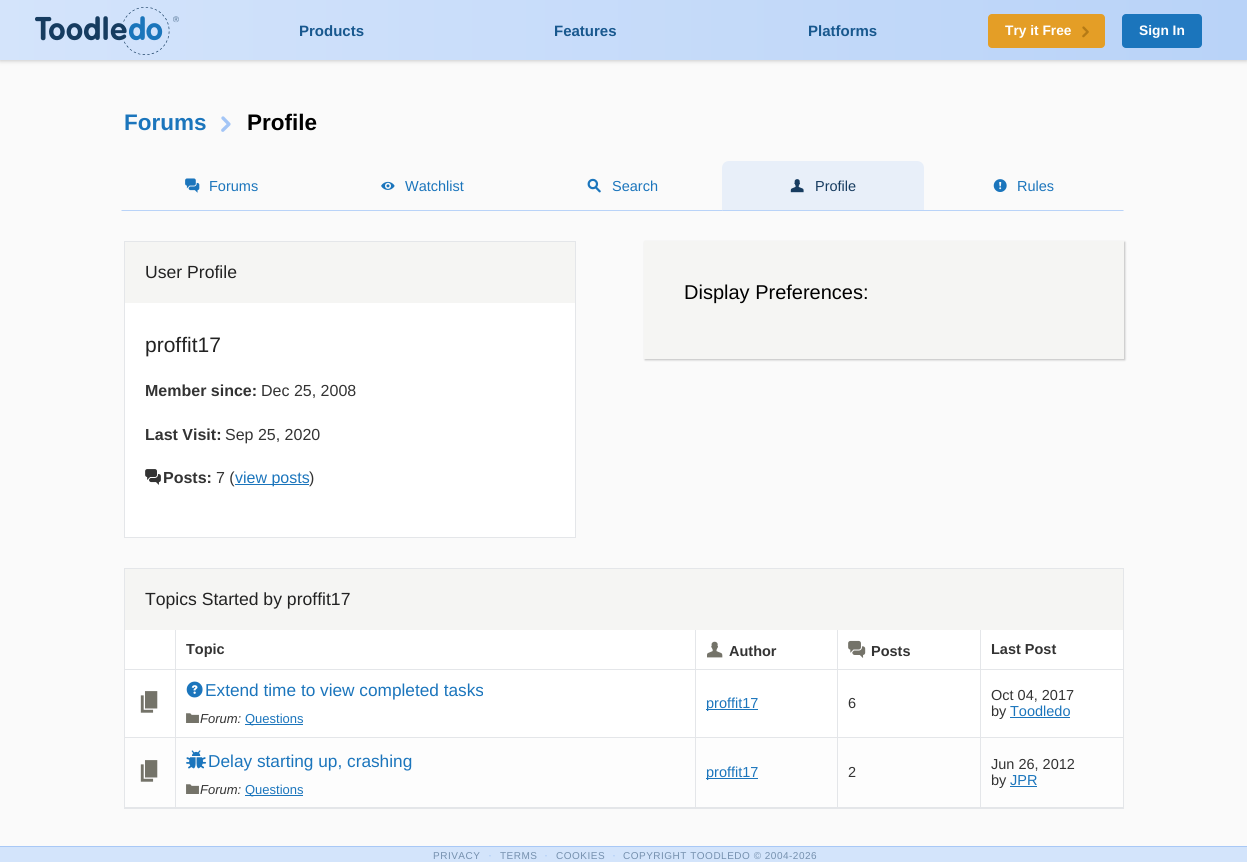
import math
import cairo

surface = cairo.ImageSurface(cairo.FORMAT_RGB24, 1247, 862)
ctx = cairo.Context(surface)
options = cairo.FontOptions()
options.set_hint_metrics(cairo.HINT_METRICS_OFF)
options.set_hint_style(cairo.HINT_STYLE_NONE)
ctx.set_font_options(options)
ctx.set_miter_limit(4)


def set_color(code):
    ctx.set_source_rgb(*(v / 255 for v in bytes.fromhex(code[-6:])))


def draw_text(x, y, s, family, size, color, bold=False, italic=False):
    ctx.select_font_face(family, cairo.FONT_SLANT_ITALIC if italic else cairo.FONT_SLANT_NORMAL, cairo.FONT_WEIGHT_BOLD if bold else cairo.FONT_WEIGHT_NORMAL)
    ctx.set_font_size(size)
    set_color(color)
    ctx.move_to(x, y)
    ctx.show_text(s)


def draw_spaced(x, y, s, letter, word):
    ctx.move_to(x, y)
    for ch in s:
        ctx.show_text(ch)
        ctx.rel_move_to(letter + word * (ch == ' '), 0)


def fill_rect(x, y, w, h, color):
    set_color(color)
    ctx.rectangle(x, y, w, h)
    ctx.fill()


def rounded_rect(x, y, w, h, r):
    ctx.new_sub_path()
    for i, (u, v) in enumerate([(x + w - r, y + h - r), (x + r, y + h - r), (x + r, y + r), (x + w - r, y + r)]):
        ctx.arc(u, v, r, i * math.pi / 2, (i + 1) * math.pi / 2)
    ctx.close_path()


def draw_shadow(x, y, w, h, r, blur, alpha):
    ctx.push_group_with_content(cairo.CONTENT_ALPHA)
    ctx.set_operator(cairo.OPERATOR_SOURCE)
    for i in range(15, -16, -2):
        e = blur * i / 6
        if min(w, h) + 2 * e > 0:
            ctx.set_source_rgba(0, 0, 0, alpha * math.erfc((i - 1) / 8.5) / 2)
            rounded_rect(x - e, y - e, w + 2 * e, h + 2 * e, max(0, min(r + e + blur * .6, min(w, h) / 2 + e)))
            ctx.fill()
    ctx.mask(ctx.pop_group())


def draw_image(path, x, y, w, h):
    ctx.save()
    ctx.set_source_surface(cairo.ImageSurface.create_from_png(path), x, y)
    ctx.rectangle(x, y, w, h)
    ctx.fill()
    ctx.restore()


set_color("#fafafa")
ctx.paint()
set_color("#333333")
draw_shadow(0, -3, 1247, 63, 0, 2.5, 0.35)
gradient = cairo.LinearGradient(0, 29, 1247, 28)
gradient.add_color_stop_rgba(0, 0.831, 0.894, 0.984, 1)
gradient.add_color_stop_rgba(1, 0.725, 0.827, 0.973, 1)
ctx.set_source(gradient)
ctx.rectangle(0, 0, 1247, 60)
ctx.fill()
draw_image("assets/img1.png", 35, 7, 144, 48)
draw_text(299, 36, "Products", "Liberation Sans", 15, "#18588e", bold=True)
draw_text(554, 36, "Features", "Liberation Sans", 15, "#18588e", bold=True)
draw_text(808, 36, "Platforms", "Liberation Sans", 15, "#18588e", bold=True)
set_color("#e49e26")
rounded_rect(988, 14, 117, 34, 4)
ctx.fill()
draw_text(1005, 35, "Try it Free", "Liberation Sans", 13.75, "#ffffff", bold=True)
draw_image("assets/img2.png", 1082, 26, 7, 12)
set_color("#1b75bc")
rounded_rect(1122, 14, 80, 34, 4)
ctx.fill()
draw_text(1139, 35, "Sign In", "Liberation Sans", 13.75, "#ffffff", bold=True)
draw_text(124, 130, "Forums", "Liberation Sans", 22.5, "#1b75bc", bold=True)
draw_image("assets/img3.png", 221, 116, 10, 16)
draw_text(247, 130, "Profile", "Liberation Sans", 22.5, "#000000", bold=True)
set_color("#b9d3f8")
ctx.new_path()
ctx.move_to(323, 211)
ctx.line_to(121, 211)
ctx.line_to(122, 210)
ctx.line_to(322, 210)
ctx.close_path()
ctx.fill()
draw_image("assets/img4.png", 185, 178, 15, 15)
draw_text(209, 191, "Forums", "Liberation Sans", 14.5, "#1b75bc")
set_color("#b9d3f8")
ctx.new_path()
ctx.move_to(523, 211)
ctx.line_to(321, 211)
ctx.line_to(322, 210)
ctx.line_to(522, 210)
ctx.close_path()
ctx.fill()
draw_image("assets/img5.png", 381, 181, 14, 9)
draw_text(405, 191, "Watchlist", "Liberation Sans", 14.5, "#1b75bc")
set_color("#b9d3f8")
ctx.new_path()
ctx.move_to(723, 211)
ctx.line_to(521, 211)
ctx.line_to(522, 210)
ctx.line_to(722, 210)
ctx.close_path()
ctx.fill()
draw_image("assets/img6.png", 587, 178, 14, 15)
draw_text(612, 191, "Search", "Liberation Sans", 14.5, "#1b75bc")
ctx.set_source_rgba(0.639, 0.773, 0.965, 0.2)
ctx.new_path()
ctx.move_to(729, 161)
ctx.line_to(917, 161)
ctx.curve_to(921, 161, 924, 164, 924, 168)
ctx.line_to(924, 211)
ctx.line_to(722, 211)
ctx.line_to(722, 168)
ctx.curve_to(722, 164, 725, 161, 729, 161)
ctx.close_path()
ctx.fill()
set_color("#b9d3f8")
ctx.new_path()
ctx.move_to(924, 211)
ctx.line_to(923, 210)
ctx.line_to(723, 210)
ctx.line_to(722, 211)
ctx.close_path()
ctx.fill()
draw_image("assets/img7.png", 790, 179, 14, 14)
draw_text(815, 191, "Profile", "Liberation Sans", 14.5, "#173c60")
set_color("#b9d3f8")
ctx.new_path()
ctx.move_to(1124, 211)
ctx.line_to(922, 211)
ctx.line_to(923, 210)
ctx.line_to(1123, 210)
ctx.close_path()
ctx.fill()
draw_image("assets/img8.png", 993, 179, 14, 13)
draw_text(1017, 191, "Rules", "Liberation Sans", 14.5, "#1b75bc")
fill_rect(125, 303, 450, 234, "#ffffff")
ctx.rectangle(124.5, 241.5, 451, 296)
set_color("#e4e6e9")
ctx.set_line_width(1)
ctx.stroke()
fill_rect(125, 242, 450, 61, "#f5f5f3")
draw_text(145, 278, "User Profile", "Liberation Sans", 17.6, "#222222")
draw_text(145, 352, "proffit17", "Liberation Sans", 21, "#222222")
draw_text(145, 396, "Member since:", "Liberation Sans", 16, "#333333", bold=True)
draw_text(261, 396, "Dec 25, 2008", "Liberation Sans", 16, "#333333")
draw_text(145, 440, "Last Visit:", "Liberation Sans", 16, "#333333", bold=True)
draw_text(225, 440, "Sep 25, 2020", "Liberation Sans", 16, "#333333")
draw_image("assets/img9.png", 145, 469, 16, 16)
draw_text(163, 483, "Posts:", "Liberation Sans", 16, "#333333", bold=True)
draw_text(216, 483, "7 (", "Liberation Sans", 16, "#333333")
fill_rect(235, 484, 74, 1, "#1b75bc")
draw_text(235, 483, "view posts", "Liberation Sans", 16, "#1b75bc")
draw_text(309, 483, ")", "Liberation Sans", 16, "#333333")
set_color("#323232")
draw_shadow(645, 242, 480, 118, 0, 1, 0.3)
fill_rect(644, 241, 480, 118, "#f5f5f3")
draw_text(684, 299, "Display Preferences:", "Liberation Sans", 20, "#000000")
fill_rect(125, 670, 998, 67, "#ffffff")
ctx.rectangle(124.5, 568.5, 999, 240)
set_color("#e4e6e9")
ctx.stroke()
fill_rect(124, 669, 999, 1, "#e4e6e9")
fill_rect(124, 737, 999, 1, "#e4e6e9")
fill_rect(125, 738, 998, 69, "#fdfdfd")
fill_rect(124, 807, 999, 1, "#e4e6e9")
fill_rect(175, 629, 1, 179, "#e4e6e9")
fill_rect(695, 629, 1, 179, "#e4e6e9")
fill_rect(837, 629, 1, 179, "#e4e6e9")
fill_rect(980, 629, 1, 179, "#e4e6e9")
fill_rect(125, 569, 998, 61, "#f5f5f3")
draw_text(145, 605, "Topics Started by proffit17", "Liberation Sans", 17.6, "#222222")
fill_rect(125, 630, 50, 39, "#ffffff")
fill_rect(176, 630, 519, 39, "#ffffff")
draw_text(186, 654, "Topic", "Liberation Sans", 14.5, "#333333", bold=True)
fill_rect(696, 630, 141, 39, "#ffffff")
draw_image("assets/img10.png", 707, 641, 16, 17)
draw_text(729, 656, "Author", "Liberation Sans", 14.5, "#333333", bold=True)
fill_rect(838, 630, 142, 39, "#ffffff")
draw_image("assets/img11.png", 848, 640, 18, 18)
draw_text(871, 656, "Posts", "Liberation Sans", 14.5, "#333333", bold=True)
fill_rect(981, 630, 142, 39, "#ffffff")
draw_text(991, 654, "Last Post", "Liberation Sans", 14.5, "#333333", bold=True)
draw_image("assets/img12.png", 140, 691, 18, 22)
draw_image("assets/img13.png", 186, 681, 17, 17)
draw_text(205, 696, "Extend time to view completed tasks", "Liberation Sans", 17.25, "#1b75bc")
draw_image("assets/img14.png", 186, 713, 13, 10)
draw_text(200, 723, "Forum:", "Liberation Sans", 13, "#333333", italic=True)
fill_rect(245, 724, 58, 1, "#1b75bc")
draw_text(245, 723, "Questions", "Liberation Sans", 13, "#1b75bc")
fill_rect(706, 709, 52, 1, "#1b75bc")
draw_text(706, 708, "proffit17", "Liberation Sans", 14.5, "#1b75bc")
draw_text(848, 708, "6", "Liberation Sans", 14.5, "#333333")
draw_text(991, 700, "Oct 04, 2017", "Liberation Sans", 14.5, "#333333")
draw_text(991, 716, "by", "Liberation Sans", 14.5, "#333333")
draw_text(1010, 716, "Toodledo", "Liberation Sans", 14.5, "#1b75bc")
fill_rect(1010, 717, 60, 1, "#1b75bc")
draw_image("assets/img15.png", 140, 760, 18, 22)
draw_image("assets/img16.png", 186, 750, 21, 19)
draw_text(208, 767, "Delay starting up, crashing", "Liberation Sans", 17.25, "#1b75bc")
draw_image("assets/img17.png", 186, 784, 13, 10)
draw_text(200, 794, "Forum:", "Liberation Sans", 13, "#333333", italic=True)
fill_rect(245, 795, 58, 1, "#1b75bc")
draw_text(245, 794, "Questions", "Liberation Sans", 13, "#1b75bc")
fill_rect(706, 778, 52, 1, "#1b75bc")
draw_text(706, 777, "proffit17", "Liberation Sans", 14.5, "#1b75bc")
draw_text(848, 777, "2", "Liberation Sans", 14.5, "#333333")
draw_text(991, 769, "Jun 26, 2012", "Liberation Sans", 14.5, "#333333")
draw_text(991, 785, "by", "Liberation Sans", 14.5, "#333333")
draw_text(1010, 785, "JPR", "Liberation Sans", 14.5, "#1b75bc")
fill_rect(1010, 786, 27, 1, "#1b75bc")
fill_rect(0, 847, 1247, 15, "#d3e4fb")
fill_rect(0, 846, 1247, 1, "#a8c8f6")
ctx.set_font_size(10)
set_color("#7590ae")
draw_spaced(433, 859, "PRIVACY", 0.5, 0)
draw_text(488, 859, "·", "Liberation Sans", 12, "#a8c8f6")
ctx.set_font_size(10)
set_color("#7590ae")
draw_spaced(500, 859, "TERMS", 0.5, 0)
draw_text(544, 859, "·", "Liberation Sans", 12, "#a8c8f6")
ctx.set_font_size(10)
set_color("#7590ae")
draw_spaced(556, 859, "COOKIES", 0.5, 0)
draw_text(612, 859, "·", "Liberation Sans", 12, "#a8c8f6")
ctx.set_font_size(10)
set_color("#7590ae")
draw_spaced(623, 859, "COPYRIGHT TOODLEDO © 2004-2026", 0.5, 0)
surface.write_to_png("output.png")
